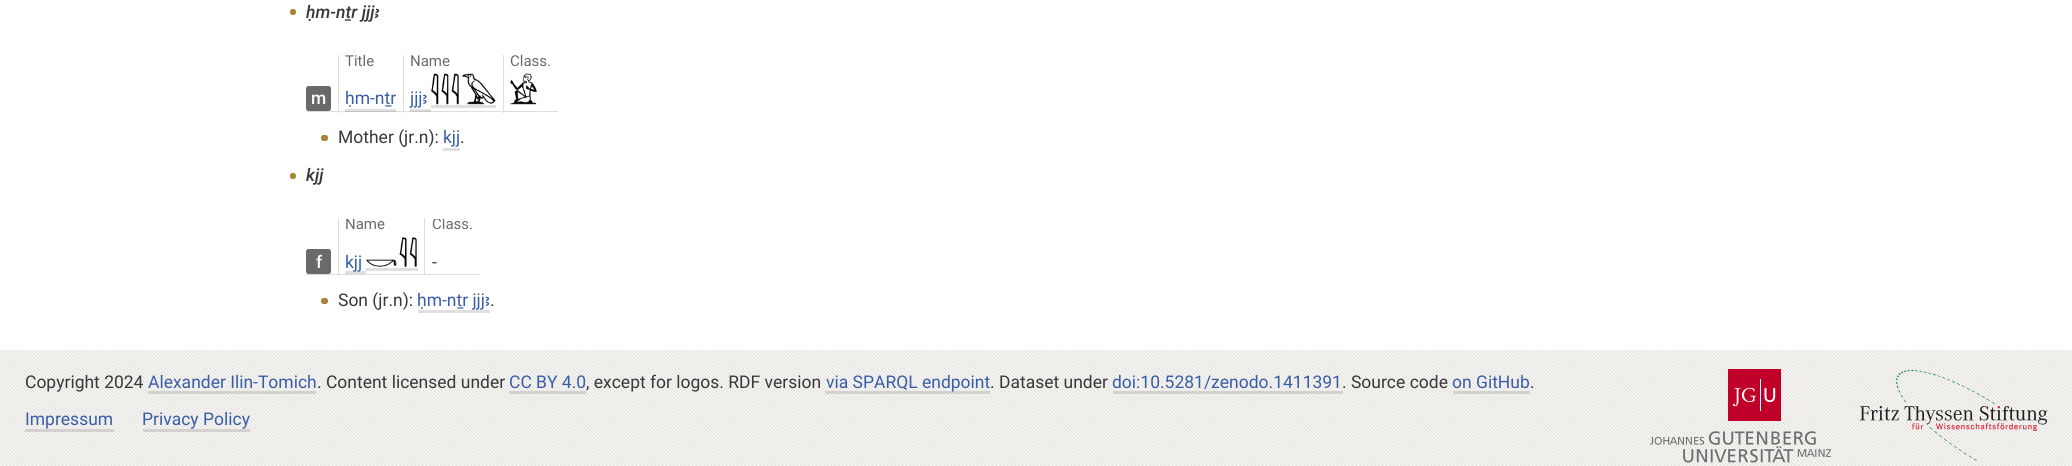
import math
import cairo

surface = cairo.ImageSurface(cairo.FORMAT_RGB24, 2072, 466)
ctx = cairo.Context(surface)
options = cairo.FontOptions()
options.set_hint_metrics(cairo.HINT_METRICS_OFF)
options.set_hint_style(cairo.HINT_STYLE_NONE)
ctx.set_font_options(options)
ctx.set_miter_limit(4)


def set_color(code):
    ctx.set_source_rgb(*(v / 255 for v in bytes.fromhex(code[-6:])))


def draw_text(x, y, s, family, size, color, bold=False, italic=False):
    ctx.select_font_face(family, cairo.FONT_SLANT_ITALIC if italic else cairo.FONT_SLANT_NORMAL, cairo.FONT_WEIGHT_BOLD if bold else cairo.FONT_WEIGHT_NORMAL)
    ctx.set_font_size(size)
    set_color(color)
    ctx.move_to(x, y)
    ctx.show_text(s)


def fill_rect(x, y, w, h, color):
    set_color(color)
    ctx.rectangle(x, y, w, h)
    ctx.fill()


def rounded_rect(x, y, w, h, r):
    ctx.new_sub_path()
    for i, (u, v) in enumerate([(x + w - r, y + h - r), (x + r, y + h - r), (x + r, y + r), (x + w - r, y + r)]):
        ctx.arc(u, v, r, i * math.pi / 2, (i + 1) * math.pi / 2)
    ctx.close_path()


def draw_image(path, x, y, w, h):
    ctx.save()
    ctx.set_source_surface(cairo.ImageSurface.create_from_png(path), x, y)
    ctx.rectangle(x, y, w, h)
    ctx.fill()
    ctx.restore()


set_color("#ffffff")
ctx.paint()
fill_rect(410, 109, 21, 2, "#e0e0e0")
fill_rect(345, 109, 51, 2, "#e0e0e0")
set_color("#a88338")
rounded_rect(290, 9, 6, 6, 2.5)
ctx.fill()
draw_text(306, 18, "ḥm-nṯr jjjꜣ", "Roboto Medium", 17.5, "#383838", italic=True)
draw_text(345, 66, "Title", "Roboto", 15, "#6a6a6a")
draw_text(410, 66, "Name", "Roboto", 15, "#6a6a6a")
draw_text(510, 66, "Class.", "Roboto", 15, "#6a6a6a")
fill_rect(503, 111, 55, 1, "#dddddd")
fill_rect(503, 55, 1, 58, "#dddddd")
fill_rect(403, 111, 101, 1, "#dddddd")
fill_rect(403, 55, 1, 58, "#dddddd")
fill_rect(338, 111, 66, 1, "#dddddd")
fill_rect(338, 55, 1, 58, "#dddddd")
fill_rect(306, 111, 33, 1, "#dddddd")
set_color("#6a6a6a")
rounded_rect(306, 86, 25, 25, 2.5)
ctx.fill()
draw_text(311, 104, "m", "Roboto Medium", 17.5, "#ffffff")
fill_rect(345, 111, 51, 1, "#c2c2c2")
draw_text(345, 104, "ḥm-nṯr", "Roboto", 17.5, "#385da8")
fill_rect(410, 111, 21, 1, "#c2c2c2")
draw_text(410, 104, "jjjꜣ", "Roboto", 17.5, "#385da8")
fill_rect(431, 105, 65, 3, "#dfdfdf")
draw_image("assets/img1.png", 431, 73, 65, 32)
draw_image("assets/img2.png", 510, 73, 27, 32)
set_color("#a88338")
rounded_rect(321, 135, 7, 6, 2.5)
ctx.fill()
draw_text(338, 143, "Mother (jr.n):", "Roboto", 17.5, "#383838")
draw_text(443, 143, "kjj", "Roboto", 17.5, "#385da8")
fill_rect(443, 148, 17, 3, "#dfdfdf")
draw_text(460, 143, ".", "Roboto", 17.5, "#383838")
set_color("#a88338")
rounded_rect(290, 173, 6, 6, 2.5)
ctx.fill()
draw_text(306, 181, "kjj", "Roboto Medium", 17.5, "#383838", italic=True)
ctx.save()
ctx.new_path()
ctx.move_to(341, 219)
ctx.line_to(422.5, 219)
ctx.curve_to(424, 219, 425, 220, 425, 221)
ctx.line_to(425, 237.5)
ctx.line_to(340, 237.5)
ctx.line_to(340, 221)
ctx.curve_to(340, 220, 340.5, 219, 341, 219)
ctx.close_path()
ctx.clip()
draw_text(345, 229, "Name", "Roboto", 15, "#6a6a6a")
ctx.restore()
ctx.save()
ctx.new_path()
ctx.move_to(427.5, 219)
ctx.line_to(476, 219)
ctx.curve_to(477.5, 219, 479, 220, 479, 221)
ctx.line_to(479, 237.5)
ctx.line_to(426, 237.5)
ctx.line_to(426, 221)
ctx.curve_to(426, 220, 427, 219, 427.5, 219)
ctx.close_path()
ctx.clip()
draw_text(432, 229, "Class.", "Roboto", 15, "#6a6a6a")
ctx.restore()
fill_rect(424, 274, 56, 1, "#dddddd")
fill_rect(424, 218, 1, 57, "#dddddd")
fill_rect(338, 274, 87, 1, "#dddddd")
fill_rect(338, 218, 1, 57, "#dddddd")
fill_rect(306, 274, 33, 1, "#dddddd")
set_color("#6a6a6a")
rounded_rect(306, 249, 25, 25, 2.5)
ctx.fill()
draw_text(316, 268, "f", "Roboto Medium", 17.5, "#ffffff")
fill_rect(345, 271, 21, 3, "#dfdfdf")
draw_text(345, 268, "kjj", "Roboto", 17.5, "#385da8")
fill_rect(366, 268, 52, 3, "#dfdfdf")
draw_image("assets/img3.png", 366, 237, 51, 30)
draw_text(432, 268, "-", "Roboto", 17.5, "#383838")
set_color("#a88338")
rounded_rect(321, 298, 7, 6, 2.5)
ctx.fill()
draw_text(338, 306, "Son (jr.n):", "Roboto", 17.5, "#383838")
draw_text(417, 306, "ḥm-nṯr jjjꜣ", "Roboto", 17.5, "#385da8")
fill_rect(418, 310, 72, 3, "#dfdfdf")
draw_text(490, 306, ".", "Roboto", 17.5, "#383838")
fill_rect(0, 350, 2072, 116, "#f8f7f4")
draw_image("assets/img4.png", 0, 350, 2072, 116)
draw_text(25, 388, "Copyright 2024", "Roboto", 17.5, "#383838")
draw_text(148, 388, "Alexander Ilin-Tomich", "Roboto", 17.5, "#385da8")
ctx.set_source_rgba(0, 0, 0, 0.12)
ctx.rectangle(148, 391, 168, 3)
ctx.fill()
draw_text(317, 388, ". Content licensed under", "Roboto", 17.5, "#383838")
draw_text(509, 388, "CC BY 4.0", "Roboto", 17.5, "#385da8")
ctx.set_source_rgba(0, 0, 0, 0.12)
ctx.rectangle(509, 391, 77, 3)
ctx.fill()
draw_text(586, 388, ", except for logos. RDF version", "Roboto", 17.5, "#383838")
ctx.set_source_rgba(0, 0, 0, 0.12)
ctx.rectangle(825, 391, 165, 3)
ctx.fill()
draw_text(826, 388, "via SPARQL endpoint", "Roboto", 17.5, "#385da8")
draw_text(990, 388, ". Dataset under", "Roboto", 17.5, "#383838")
draw_text(1112, 388, "doi:10.5281/zenodo.1411391", "Roboto", 17.5, "#385da8")
ctx.set_source_rgba(0, 0, 0, 0.12)
ctx.rectangle(1113, 391, 230, 3)
ctx.fill()
draw_text(1342, 388, ". Source code", "Roboto", 17.5, "#383838")
draw_text(1452, 388, "on GitHub", "Roboto", 17.5, "#385da8")
ctx.set_source_rgba(0, 0, 0, 0.12)
ctx.rectangle(1453, 391, 77, 3)
ctx.fill()
draw_text(1530, 388, ".", "Roboto", 17.5, "#383838")
draw_text(25, 425, "Impressum", "Roboto", 17.5, "#385da8")
ctx.set_source_rgba(0, 0, 0, 0.12)
ctx.rectangle(25, 429, 89, 3)
ctx.fill()
draw_text(142, 425, "Privacy Policy", "Roboto", 17.5, "#385da8")
ctx.set_source_rgba(0, 0, 0, 0.12)
ctx.rectangle(143, 429, 107, 3)
ctx.fill()
draw_image("assets/img5.png", 1650, 369, 181, 94)
draw_image("assets/img6.png", 1860, 370, 188, 91)
surface.write_to_png("output.png")
